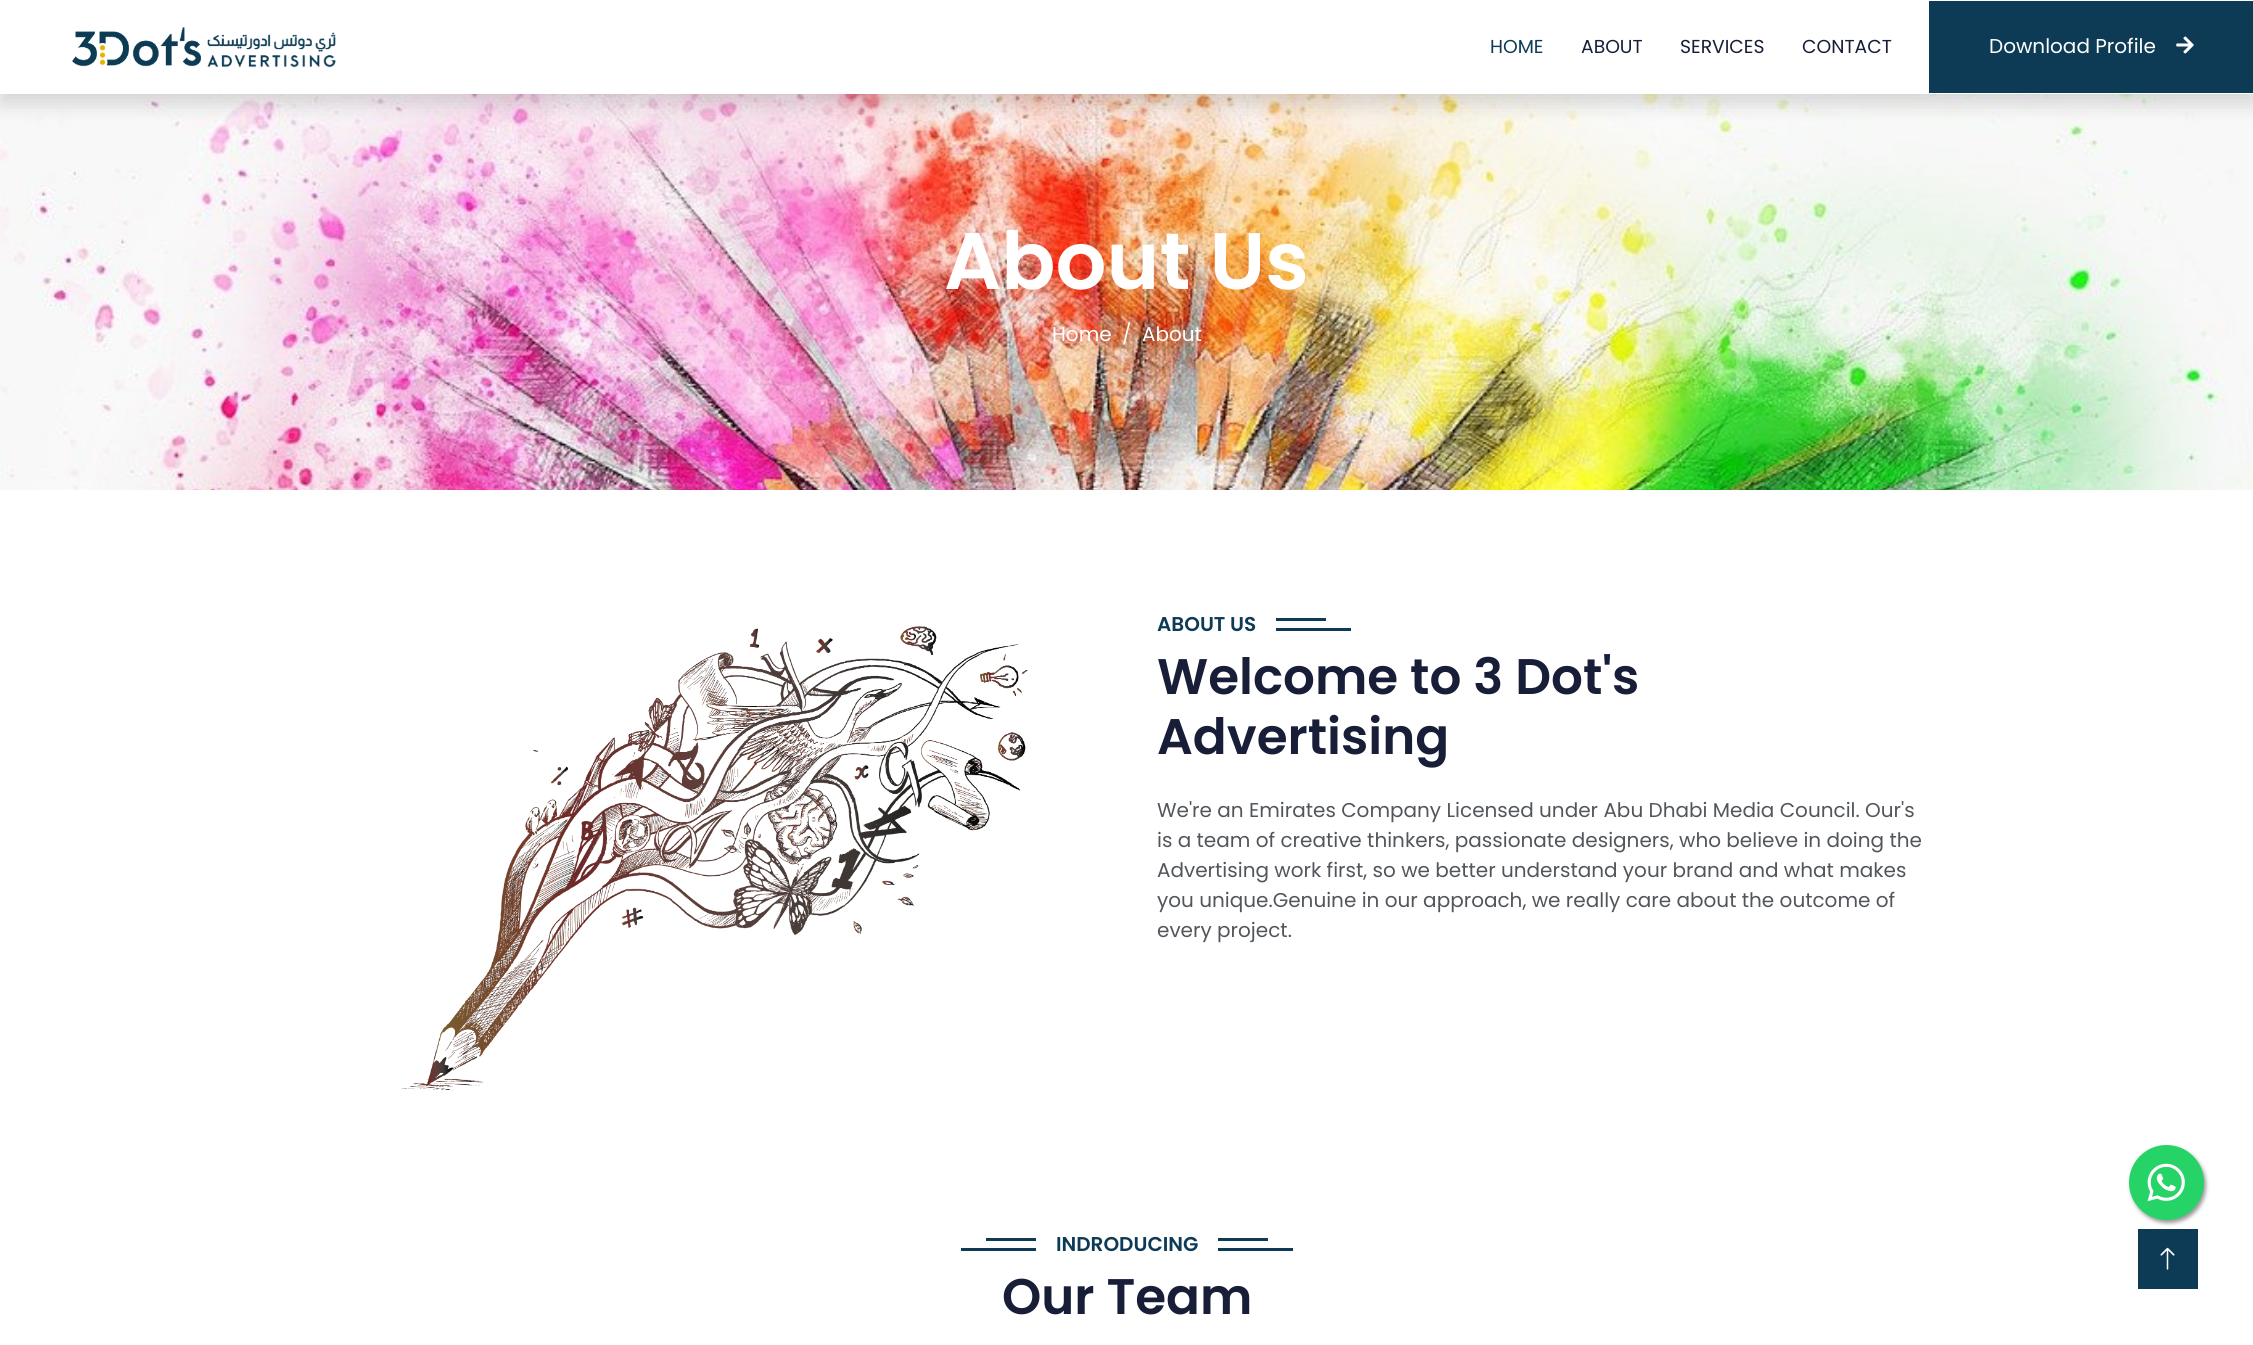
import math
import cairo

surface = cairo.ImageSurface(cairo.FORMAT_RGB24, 2253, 1345)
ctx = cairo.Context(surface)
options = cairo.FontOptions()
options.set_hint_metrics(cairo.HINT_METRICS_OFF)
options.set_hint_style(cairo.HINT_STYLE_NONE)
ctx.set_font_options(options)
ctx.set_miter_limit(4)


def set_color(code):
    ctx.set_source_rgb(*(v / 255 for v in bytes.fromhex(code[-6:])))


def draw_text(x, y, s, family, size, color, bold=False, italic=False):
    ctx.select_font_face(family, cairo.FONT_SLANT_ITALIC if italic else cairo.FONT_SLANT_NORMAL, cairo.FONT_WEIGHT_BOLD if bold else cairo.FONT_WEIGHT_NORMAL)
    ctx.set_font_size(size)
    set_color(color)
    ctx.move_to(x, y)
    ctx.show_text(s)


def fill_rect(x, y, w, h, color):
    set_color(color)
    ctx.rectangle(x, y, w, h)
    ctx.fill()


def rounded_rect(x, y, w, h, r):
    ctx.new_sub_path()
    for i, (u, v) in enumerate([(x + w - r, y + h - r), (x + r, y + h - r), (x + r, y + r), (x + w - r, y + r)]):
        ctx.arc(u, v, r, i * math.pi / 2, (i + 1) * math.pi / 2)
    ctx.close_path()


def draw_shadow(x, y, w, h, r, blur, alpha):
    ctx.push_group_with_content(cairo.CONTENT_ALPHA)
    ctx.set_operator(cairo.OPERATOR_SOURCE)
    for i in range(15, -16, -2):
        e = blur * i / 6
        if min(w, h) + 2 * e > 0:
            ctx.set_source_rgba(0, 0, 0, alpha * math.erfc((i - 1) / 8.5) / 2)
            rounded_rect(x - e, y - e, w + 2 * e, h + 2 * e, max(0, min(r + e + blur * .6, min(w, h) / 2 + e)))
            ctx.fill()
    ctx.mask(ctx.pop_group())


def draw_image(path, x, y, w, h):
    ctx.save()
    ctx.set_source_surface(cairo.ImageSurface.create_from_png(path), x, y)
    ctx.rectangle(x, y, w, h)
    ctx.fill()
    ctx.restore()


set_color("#ffffff")
ctx.paint()
draw_image("assets/img3.png", 0, 94, 2253, 396)
set_color("#000000")
draw_shadow(0, 10, 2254, 94, 0, 10, 0.15)
fill_rect(0, 0, 2253, 94, "#ffffff")
draw_image("assets/img1.png", 72, 27, 264, 41)
draw_text(1490, 53, "HOME", "Poppins", 18.75, "#0d3b55")
draw_text(1581, 53, "ABOUT", "Poppins", 18.75, "#181d38")
draw_text(1680, 53, "SERVICES", "Poppins", 18.75, "#181d38")
draw_text(1802, 53, "CONTACT", "Poppins", 18.75, "#181d38")
fill_rect(1929, 1, 324, 92, "#0d3b55")
draw_text(1989, 53, "Download Profile", "Poppins", 20, "#ffffff")
draw_image("assets/img2.png", 2176, 36, 18, 18)
draw_text(944, 289, "About Us", "Poppins SemiBold", 80, "#ffffff")
draw_text(1052, 341, "Home", "Poppins", 20, "#ffffff")
draw_text(1122, 341, "/", "Poppins", 20, "#f0fbfc")
draw_text(1142, 341, "About", "Poppins", 20, "#ffffff")
draw_image("assets/img4.png", 402, 626, 626, 465)
draw_text(1157, 631, "ABOUT US", "Poppins SemiBold", 20, "#0d3b55")
fill_rect(1276, 618, 50, 3, "#0d3b55")
fill_rect(1276, 628, 75, 3, "#0d3b55")
draw_text(1157, 694, "Welcome to 3 Dot's", "Poppins SemiBold", 50, "#181d38")
draw_text(1157, 754, "Advertising", "Poppins SemiBold", 50, "#181d38")
draw_text(1157, 817, "We're an Emirates Company Licensed under Abu Dhabi Media Council. Our's", "Poppins", 20, "#52565b")
draw_text(1157, 847, "is a team of creative thinkers, passionate designers, who believe in doing the", "Poppins", 20, "#52565b")
draw_text(1157, 877, "Advertising work first, so we better understand your brand and what makes", "Poppins", 20, "#52565b")
draw_text(1157, 907, "you unique.Genuine in our approach, we really care about the outcome of", "Poppins", 20, "#52565b")
draw_text(1157, 937, "every project.", "Poppins", 20, "#52565b")
fill_rect(2138, 1229, 60, 60, "#0d3b55")
set_color("#999999")
draw_shadow(2131, 1148, 75, 75, 37.5, 2, 1)
set_color("#25d366")
ctx.arc(2166.5, 1182.5, 37.5, 0, 2 * math.pi)
ctx.fill()
draw_image("assets/img5.png", 2147, 1163, 38, 39)
fill_rect(986, 1238, 282, 3, "#0d3b55")
fill_rect(961, 1248, 332, 3, "#0d3b55")
fill_rect(1036, 1238, 182, 13, "#ffffff")
draw_text(1056, 1251, "INDRODUCING", "Poppins SemiBold", 20, "#0d3b55")
draw_text(1002, 1314, "Our Team", "Poppins SemiBold", 50, "#181d38")
draw_image("assets/img6.png", 2160, 1247, 15, 23)
surface.write_to_png("output.png")
